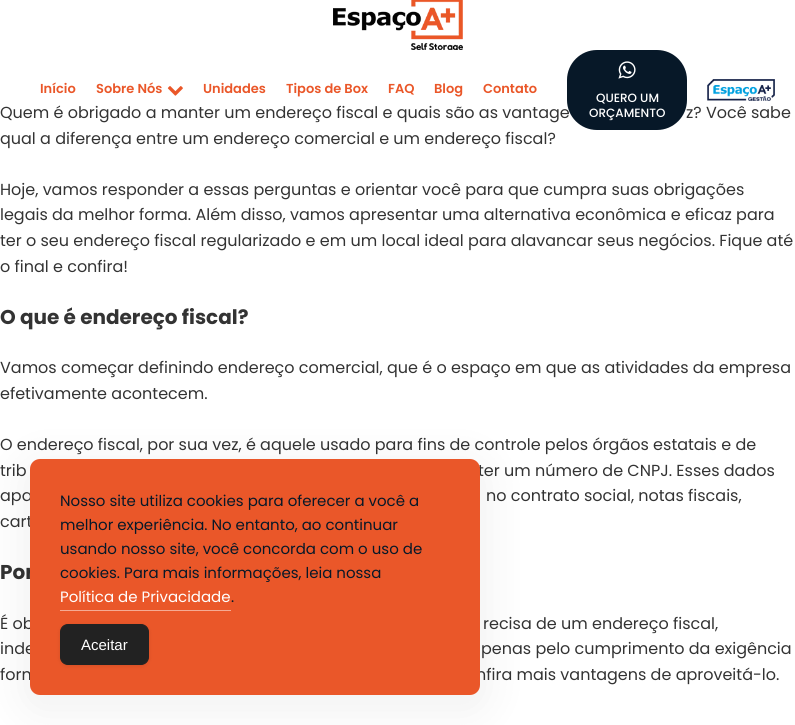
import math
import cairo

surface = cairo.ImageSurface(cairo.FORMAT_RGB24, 795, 725)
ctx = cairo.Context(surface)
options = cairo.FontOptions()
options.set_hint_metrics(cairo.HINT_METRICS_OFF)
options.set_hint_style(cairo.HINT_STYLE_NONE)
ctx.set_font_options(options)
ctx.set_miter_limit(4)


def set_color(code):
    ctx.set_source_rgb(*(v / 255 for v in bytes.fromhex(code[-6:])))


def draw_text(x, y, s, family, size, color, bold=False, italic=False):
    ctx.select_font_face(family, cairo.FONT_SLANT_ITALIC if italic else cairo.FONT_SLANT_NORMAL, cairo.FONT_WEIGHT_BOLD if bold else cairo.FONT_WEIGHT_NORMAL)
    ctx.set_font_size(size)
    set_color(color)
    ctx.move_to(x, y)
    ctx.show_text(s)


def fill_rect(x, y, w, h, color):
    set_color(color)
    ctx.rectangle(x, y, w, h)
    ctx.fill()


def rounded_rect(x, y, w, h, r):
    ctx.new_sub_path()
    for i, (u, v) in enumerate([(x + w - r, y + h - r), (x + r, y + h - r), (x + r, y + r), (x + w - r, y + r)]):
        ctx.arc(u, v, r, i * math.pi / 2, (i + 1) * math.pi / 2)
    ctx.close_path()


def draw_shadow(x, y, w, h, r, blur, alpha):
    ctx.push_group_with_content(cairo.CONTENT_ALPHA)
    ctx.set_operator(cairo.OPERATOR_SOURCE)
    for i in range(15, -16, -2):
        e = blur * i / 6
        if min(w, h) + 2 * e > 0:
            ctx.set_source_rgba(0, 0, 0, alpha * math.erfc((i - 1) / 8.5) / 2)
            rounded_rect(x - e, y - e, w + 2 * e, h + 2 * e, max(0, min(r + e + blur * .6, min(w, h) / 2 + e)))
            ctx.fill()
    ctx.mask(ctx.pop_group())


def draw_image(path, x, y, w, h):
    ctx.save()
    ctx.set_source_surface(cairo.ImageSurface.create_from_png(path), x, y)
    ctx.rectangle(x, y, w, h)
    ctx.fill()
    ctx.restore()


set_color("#ffffff")
ctx.paint()
draw_image("assets/img1.png", 333, 0, 130, 50)
draw_text(40, 93, "Início", "Poppins SemiBold", 13, "#ea5729")
draw_text(96, 93, "Sobre Nós", "Poppins SemiBold", 13, "#ea5729")
draw_image("assets/img2.png", 167, 86, 16, 10)
draw_text(203, 93, "Unidades", "Poppins SemiBold", 13, "#ea5729")
draw_text(286, 93, "Tipos de Box", "Poppins SemiBold", 13, "#ea5729")
draw_text(388, 93, "FAQ", "Poppins SemiBold", 13, "#ea5729")
draw_text(434, 93, "Blog", "Poppins SemiBold", 13, "#ea5729")
draw_text(483, 93, "Contato", "Poppins SemiBold", 13, "#ea5729")
draw_image("assets/img3.png", 707, 79, 68, 22)
draw_text(0, 118, "Quem é obrigado a manter um endereço fiscal e quais são as vantage", "Poppins", 16, "#333333")
draw_text(686, 118, "z? Você sabe", "Poppins", 16, "#333333")
set_color("#071828")
rounded_rect(567, 50, 120, 80, 30)
ctx.fill()
draw_image("assets/img4.png", 618, 61, 18, 18)
draw_text(596, 102, "QUERO UM", "Poppins Medium", 12, "#ffffff")
draw_text(589, 117, "ORÇAMENTO", "Poppins Medium", 12, "#ffffff")
draw_text(0, 144, "qual a diferença entre um endereço comercial e um endereço fiscal?", "Poppins", 16, "#333333")
draw_text(0, 195, "Hoje, vamos responder a essas perguntas e orientar você para que cumpra suas obrigações", "Poppins", 16, "#333333")
draw_text(0, 220, "legais da melhor forma. Além disso, vamos apresentar uma alternativa econômica e eficaz para", "Poppins", 16, "#333333")
draw_text(0, 246, "ter o seu endereço fiscal regularizado e em um local ideal para alavancar seus negócios. Fique até", "Poppins", 16, "#333333")
draw_text(0, 272, "o final e confira!", "Poppins", 16, "#333333")
draw_text(0, 324, "O que é endereço fiscal?", "Poppins", 20, "#333333", bold=True)
draw_text(0, 373, "Vamos começar definindo endereço comercial, que é o espaço em que as atividades da empresa", "Poppins", 16, "#333333")
draw_text(0, 399, "efetivamente acontecem.", "Poppins", 16, "#333333")
draw_text(0, 450, "O endereço fiscal, por sua vez, é aquele usado para fins de controle pelos órgãos estatais e de", "Poppins", 16, "#333333")
draw_text(0, 476, "trib", "Poppins", 16, "#333333")
draw_text(478, 476, "ter um número de CNPJ. Esses dados", "Poppins", 16, "#333333")
draw_text(0, 501, "apa", "Poppins", 16, "#333333")
draw_text(486, 501, "no contrato social, notas fiscais,", "Poppins", 16, "#333333")
draw_text(0, 527, "cart", "Poppins", 16, "#333333")
draw_text(0, 579, "Por", "Poppins", 20, "#333333", bold=True)
draw_text(0, 629, "É ob", "Poppins", 16, "#333333")
draw_text(483, 629, "recisa de um endereço fiscal,", "Poppins", 16, "#333333")
draw_text(0, 654, "inde", "Poppins", 16, "#333333")
draw_text(481, 654, "penas pelo cumprimento da exigência", "Poppins", 16, "#333333")
draw_text(0, 680, "form", "Poppins", 16, "#333333")
draw_text(476, 680, "nfira mais vantagens de aproveitá-lo.", "Poppins", 16, "#333333")
set_color("#000000")
draw_shadow(20, 459, 470, 256, 20, 20, 0.05)
set_color("#ea5729")
rounded_rect(30, 459, 450, 236, 10)
ctx.fill()
draw_text(60, 506, "Nosso site utiliza cookies para oferecer a você a", "Poppins", 15, "#071828")
draw_text(60, 530, "melhor experiência. No entanto, ao continuar", "Poppins", 15, "#071828")
draw_text(60, 554, "usando nosso site, você concorda com o uso de", "Poppins", 15, "#071828")
draw_text(60, 578, "cookies. Para mais informações, leia nossa", "Poppins", 15, "#071828")
draw_text(60, 602, "Política de Privacidade", "Poppins", 15, "#ffffff")
fill_rect(60, 610, 171, 1, "#f5ab94")
draw_text(231, 602, ".", "Poppins", 15, "#071828")
set_color("#000000")
draw_shadow(60, 625, 89, 41, 8, 2, 0.1)
set_color("#222222")
rounded_rect(60.5, 624.5, 88, 40, 7.5)
ctx.fill_preserve()
ctx.set_line_width(1)
ctx.stroke()
draw_text(81, 650, "Aceitar", "Liberation Sans", 15, "#ffffff")
surface.write_to_png("output.png")
